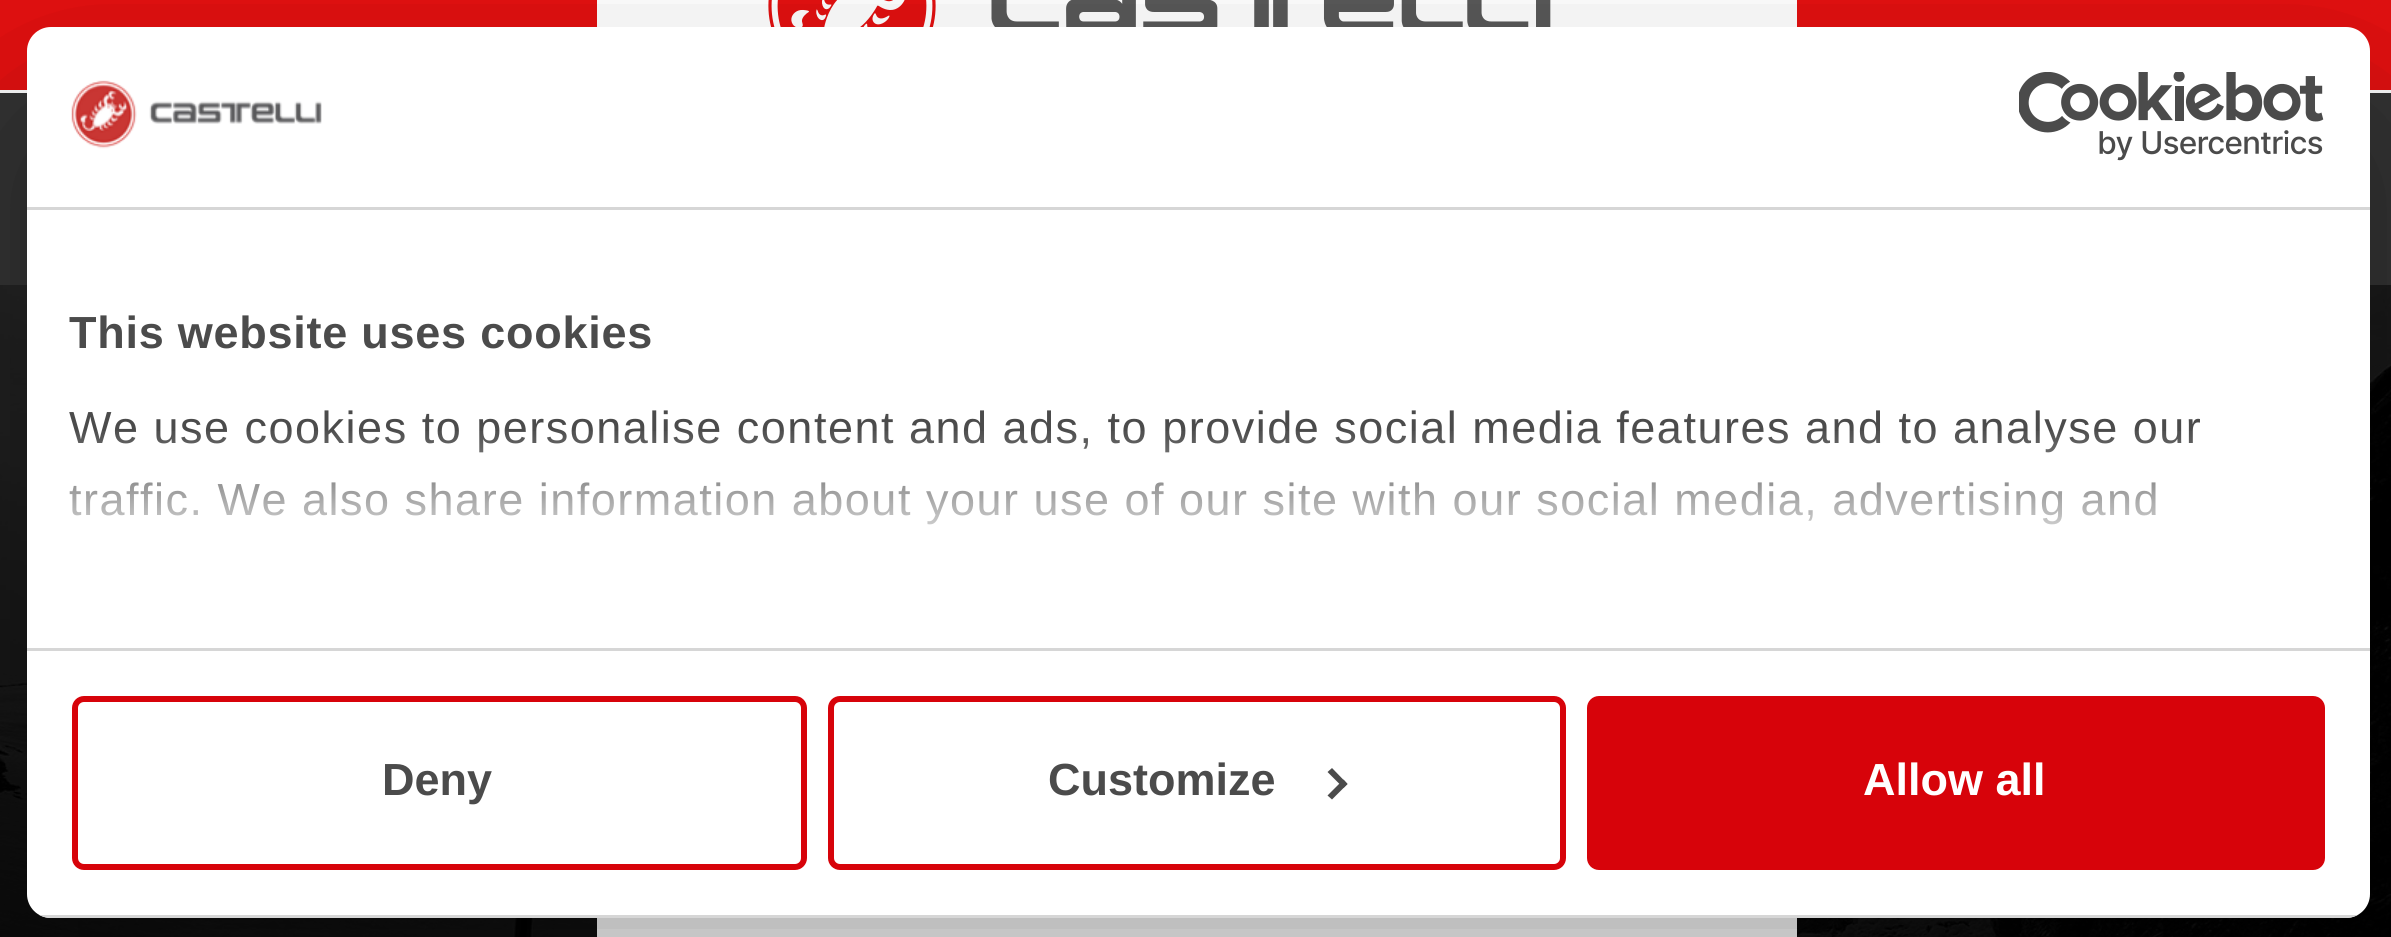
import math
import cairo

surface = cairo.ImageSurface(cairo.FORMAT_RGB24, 2391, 937)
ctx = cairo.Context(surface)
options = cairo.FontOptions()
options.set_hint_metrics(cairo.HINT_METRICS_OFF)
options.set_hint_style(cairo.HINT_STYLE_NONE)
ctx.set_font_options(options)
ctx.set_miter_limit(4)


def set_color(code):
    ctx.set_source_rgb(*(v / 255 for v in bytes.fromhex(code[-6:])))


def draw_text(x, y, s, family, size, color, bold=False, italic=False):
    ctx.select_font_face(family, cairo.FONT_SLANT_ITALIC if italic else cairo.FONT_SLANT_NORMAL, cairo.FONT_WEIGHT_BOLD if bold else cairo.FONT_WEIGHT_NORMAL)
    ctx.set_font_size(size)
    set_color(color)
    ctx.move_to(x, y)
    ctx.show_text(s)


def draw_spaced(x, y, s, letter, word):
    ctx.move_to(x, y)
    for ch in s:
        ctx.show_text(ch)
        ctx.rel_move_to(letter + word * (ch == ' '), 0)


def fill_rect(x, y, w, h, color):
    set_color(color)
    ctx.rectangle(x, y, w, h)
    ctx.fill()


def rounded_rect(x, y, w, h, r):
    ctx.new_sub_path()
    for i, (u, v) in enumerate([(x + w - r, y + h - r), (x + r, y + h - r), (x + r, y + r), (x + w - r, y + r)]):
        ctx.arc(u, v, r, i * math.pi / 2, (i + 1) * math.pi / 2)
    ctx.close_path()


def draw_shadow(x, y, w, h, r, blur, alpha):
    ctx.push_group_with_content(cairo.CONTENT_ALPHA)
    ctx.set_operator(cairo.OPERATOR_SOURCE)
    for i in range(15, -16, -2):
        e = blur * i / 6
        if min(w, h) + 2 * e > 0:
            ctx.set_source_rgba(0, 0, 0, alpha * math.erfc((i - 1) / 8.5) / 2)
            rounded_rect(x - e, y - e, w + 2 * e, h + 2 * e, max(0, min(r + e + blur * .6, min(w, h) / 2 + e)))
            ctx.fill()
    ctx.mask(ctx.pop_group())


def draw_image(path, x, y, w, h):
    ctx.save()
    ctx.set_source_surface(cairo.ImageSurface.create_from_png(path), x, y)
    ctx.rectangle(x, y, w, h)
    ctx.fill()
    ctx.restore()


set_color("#ffffff")
ctx.paint()
fill_rect(0, 93, 2391, 192, "#333333")
fill_rect(0, 0, 2391, 90, "#e31010")
draw_image("assets/img2.png", 0, 285, 2391, 652)
fill_rect(597, 0, 1200, 937, "#ffffff")
draw_image("assets/img1.png", 768, 0, 783, 27)
ctx.save()
ctx.set_fill_rule(cairo.FILL_RULE_EVEN_ODD)
ctx.new_path()
ctx.move_to(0, 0)
ctx.line_to(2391, 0)
ctx.line_to(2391, 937)
ctx.line_to(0, 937)
ctx.close_path()
ctx.move_to(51, 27)
ctx.line_to(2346, 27)
ctx.curve_to(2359.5, 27, 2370, 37.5, 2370, 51)
ctx.line_to(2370, 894)
ctx.curve_to(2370, 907.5, 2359.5, 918, 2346, 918)
ctx.line_to(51, 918)
ctx.curve_to(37.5, 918, 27, 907.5, 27, 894)
ctx.line_to(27, 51)
ctx.curve_to(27, 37.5, 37.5, 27, 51, 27)
ctx.close_path()
ctx.clip()
set_color("#000000")
draw_shadow(27, 123, 2343, 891, 24, 102, 0.3)
ctx.restore()
rounded_rect(27, 27, 2343, 891, 24)
ctx.fill()
fill_rect(27, 207, 2343, 3, "#d6d6d6")
draw_image("assets/img3.png", 71, 80, 251, 69)
draw_image("assets/img4.png", 2019, 72, 305, 89)
fill_rect(27, 648, 2343, 3, "#d6d6d6")
ctx.select_font_face("Liberation Sans", cairo.FONT_SLANT_NORMAL, cairo.FONT_WEIGHT_BOLD)
ctx.set_font_size(45)
set_color("#4b4b4b")
draw_spaced(69, 348, "This website uses cookies", 0.75, 0)
ctx.select_font_face("Liberation Sans")
draw_spaced(69, 443, "We use cookies to personalise content and ads, to provide social media features and to analyse our", 1.5, 0)
draw_spaced(69, 515, "traffic. We also share information about your use of our site with our social media, advertising and", 1.5, 0)
gradient = cairo.LinearGradient(1178, 647, 1178, 428)
gradient.add_color_stop_rgba(0, 1, 1, 1, 1)
gradient.add_color_stop_rgba(0.5, 1, 1, 1, 0.8)
gradient.add_color_stop_rgba(1, 1, 1, 1, 0)
ctx.set_source(gradient)
ctx.rectangle(69, 431, 2124, 94)
ctx.fill()
ctx.save()
rounded_rect(27, 27, 2343, 891, 24)
ctx.clip()
fill_rect(39, 915, 2319, 3, "#d6d6d6")
ctx.restore()
rounded_rect(75, 699, 729, 168, 9)
set_color("#d7030a")
ctx.set_line_width(6)
ctx.stroke()
draw_text(382, 795, "Deny", "Liberation Sans", 45, "#4b4b4b", bold=True)
rounded_rect(831, 699, 732, 168, 9)
set_color("#d7030a")
ctx.stroke()
draw_text(1048, 795, "Customize", "Liberation Sans", 45, "#4b4b4b", bold=True)
ctx.new_path()
ctx.move_to(1332, 768)
ctx.line_to(1347.5, 784)
ctx.line_to(1343.5, 788)
ctx.line_to(1327.5, 772)
ctx.close_path()
ctx.fill()
ctx.new_path()
ctx.move_to(1343.5, 779.5)
ctx.line_to(1347.5, 784)
ctx.line_to(1332, 799.5)
ctx.line_to(1327.5, 795.5)
ctx.close_path()
ctx.fill()
set_color("#d7030a")
rounded_rect(1590, 699, 732, 168, 9)
ctx.fill_preserve()
ctx.stroke()
draw_text(1863, 795, "Allow all", "Liberation Sans", 45, "#ffffff", bold=True)
surface.write_to_png("output.png")
